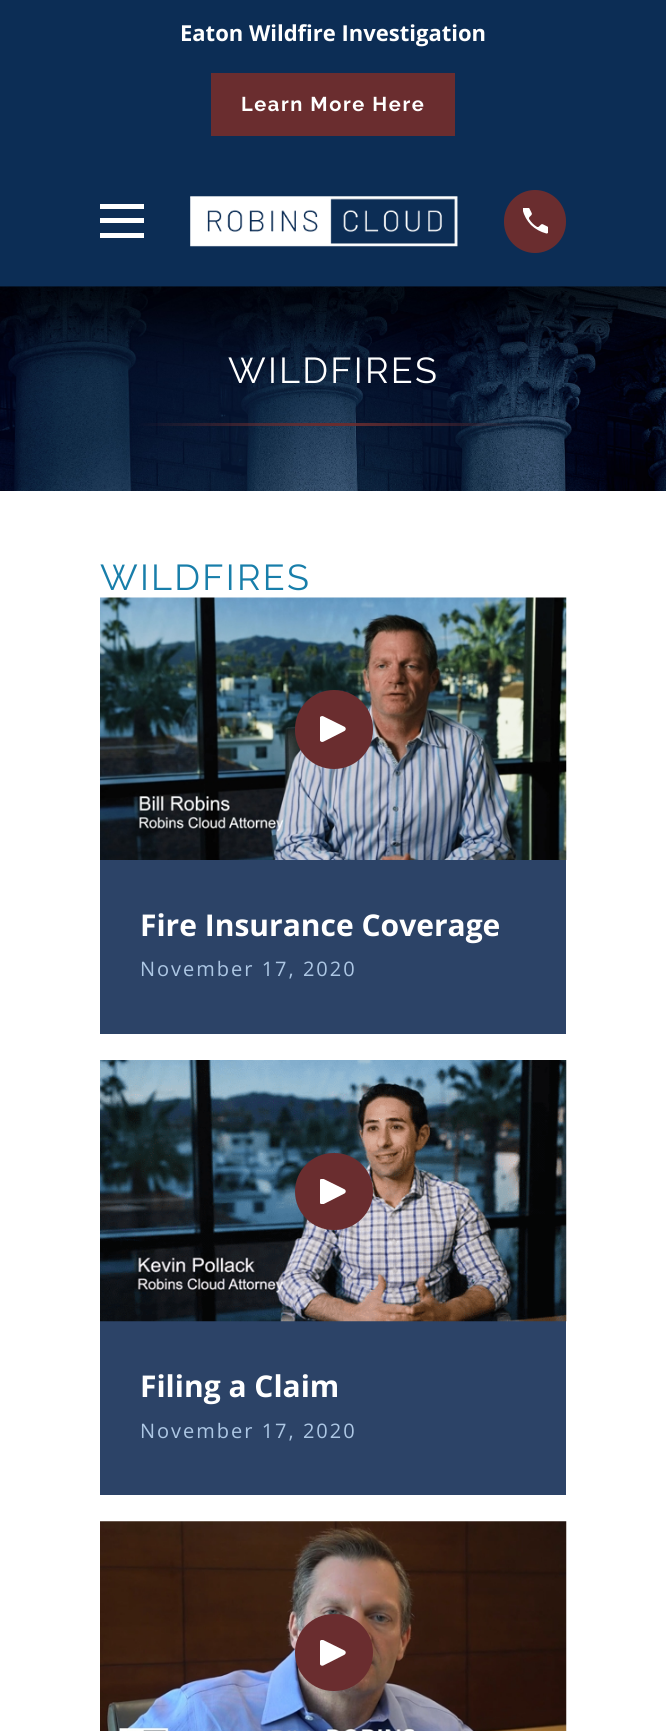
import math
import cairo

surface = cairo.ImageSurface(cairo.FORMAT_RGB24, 666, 1731)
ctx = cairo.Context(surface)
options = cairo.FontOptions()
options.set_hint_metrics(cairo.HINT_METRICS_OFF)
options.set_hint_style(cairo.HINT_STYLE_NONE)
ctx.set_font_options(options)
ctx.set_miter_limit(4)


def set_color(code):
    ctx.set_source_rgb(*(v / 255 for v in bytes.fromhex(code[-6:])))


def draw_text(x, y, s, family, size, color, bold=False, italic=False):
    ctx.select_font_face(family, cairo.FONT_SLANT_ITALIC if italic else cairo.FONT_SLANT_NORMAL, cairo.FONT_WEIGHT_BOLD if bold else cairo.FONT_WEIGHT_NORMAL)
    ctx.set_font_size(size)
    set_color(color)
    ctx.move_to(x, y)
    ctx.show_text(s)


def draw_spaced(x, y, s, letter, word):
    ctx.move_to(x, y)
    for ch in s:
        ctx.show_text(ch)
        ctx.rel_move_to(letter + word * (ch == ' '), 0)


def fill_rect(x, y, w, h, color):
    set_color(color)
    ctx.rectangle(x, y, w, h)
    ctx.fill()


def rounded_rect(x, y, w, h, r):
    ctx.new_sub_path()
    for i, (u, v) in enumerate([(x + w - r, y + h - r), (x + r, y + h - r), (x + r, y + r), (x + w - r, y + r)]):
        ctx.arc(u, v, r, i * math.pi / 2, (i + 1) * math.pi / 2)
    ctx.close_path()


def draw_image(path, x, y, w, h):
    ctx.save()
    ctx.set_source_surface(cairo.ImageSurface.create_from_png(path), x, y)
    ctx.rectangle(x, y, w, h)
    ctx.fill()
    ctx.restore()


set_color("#0c2d55")
ctx.paint()
draw_text(180, 41, "Eaton Wildfire Investigation", "Open Sans", 22, "#ffffff", bold=True)
fill_rect(211, 73, 244, 63, "#6a2d2f")
ctx.select_font_face("Raleway", cairo.FONT_SLANT_NORMAL, cairo.FONT_WEIGHT_BOLD)
ctx.set_font_size(20)
set_color("#ffffff")
draw_spaced(241, 111, "Learn More Here", 1.6, 0)
ctx.new_path()
ctx.move_to(100, 204)
ctx.line_to(100, 209)
ctx.line_to(144, 209)
ctx.line_to(144, 204)
ctx.close_path()
ctx.move_to(100, 218)
ctx.line_to(100, 223)
ctx.line_to(144, 223)
ctx.line_to(144, 218)
ctx.close_path()
ctx.move_to(100, 233)
ctx.line_to(100, 238)
ctx.line_to(144, 238)
ctx.line_to(144, 233)
ctx.close_path()
ctx.fill()
draw_image("assets/img1.png", 190, 196, 268, 51)
set_color("#6a2d2f")
rounded_rect(504, 190, 62, 63, 31)
ctx.fill()
draw_image("assets/img2.png", 523, 208, 25, 26)
draw_image("assets/img3.png", 0, 286, 666, 205)
ctx.select_font_face("Raleway")
ctx.set_font_size(36)
set_color("#ffffff")
draw_spaced(228, 383, "WILDFIRES", 2.25, 0)
fill_rect(0, 491, 666, 1240, "#ffffff")
set_color("#187eaa")
draw_spaced(100, 590, "WILDFIRES", 2.25, 0)
draw_image("assets/img4.png", 100, 597, 467, 263)
set_color("#6a2d2f")
rounded_rect(295, 690, 78, 79, 39)
ctx.fill()
draw_image("assets/img5.png", 320, 716, 26, 26)
fill_rect(100, 860, 466, 174, "#2c4367")
draw_text(140, 936, "Fire Insurance Coverage", "Open Sans", 30, "#ffffff", bold=True)
ctx.select_font_face("Open Sans")
ctx.set_font_size(20)
set_color("#adc7e4")
draw_spaced(140, 976, "November 17, 2020", 2, 0)
fill_rect(100, 1321, 466, 174, "#2c4367")
draw_image("assets/img6.png", 100, 1060, 467, 262)
set_color("#6a2d2f")
rounded_rect(295, 1153, 78, 77, 38.5)
ctx.fill()
draw_image("assets/img7.png", 320, 1179, 26, 25)
draw_text(140, 1397, "Filing a Claim", "Open Sans", 30, "#ffffff", bold=True)
ctx.select_font_face("Open Sans")
ctx.set_font_size(20)
set_color("#adc7e4")
draw_spaced(140, 1438, "November 17, 2020", 2, 0)
draw_image("assets/img8.png", 100, 1521, 467, 210)
set_color("#6a2d2f")
rounded_rect(295, 1614, 78, 77, 38.5)
ctx.fill()
draw_image("assets/img9.png", 320, 1640, 26, 26)
surface.write_to_png("output.png")
